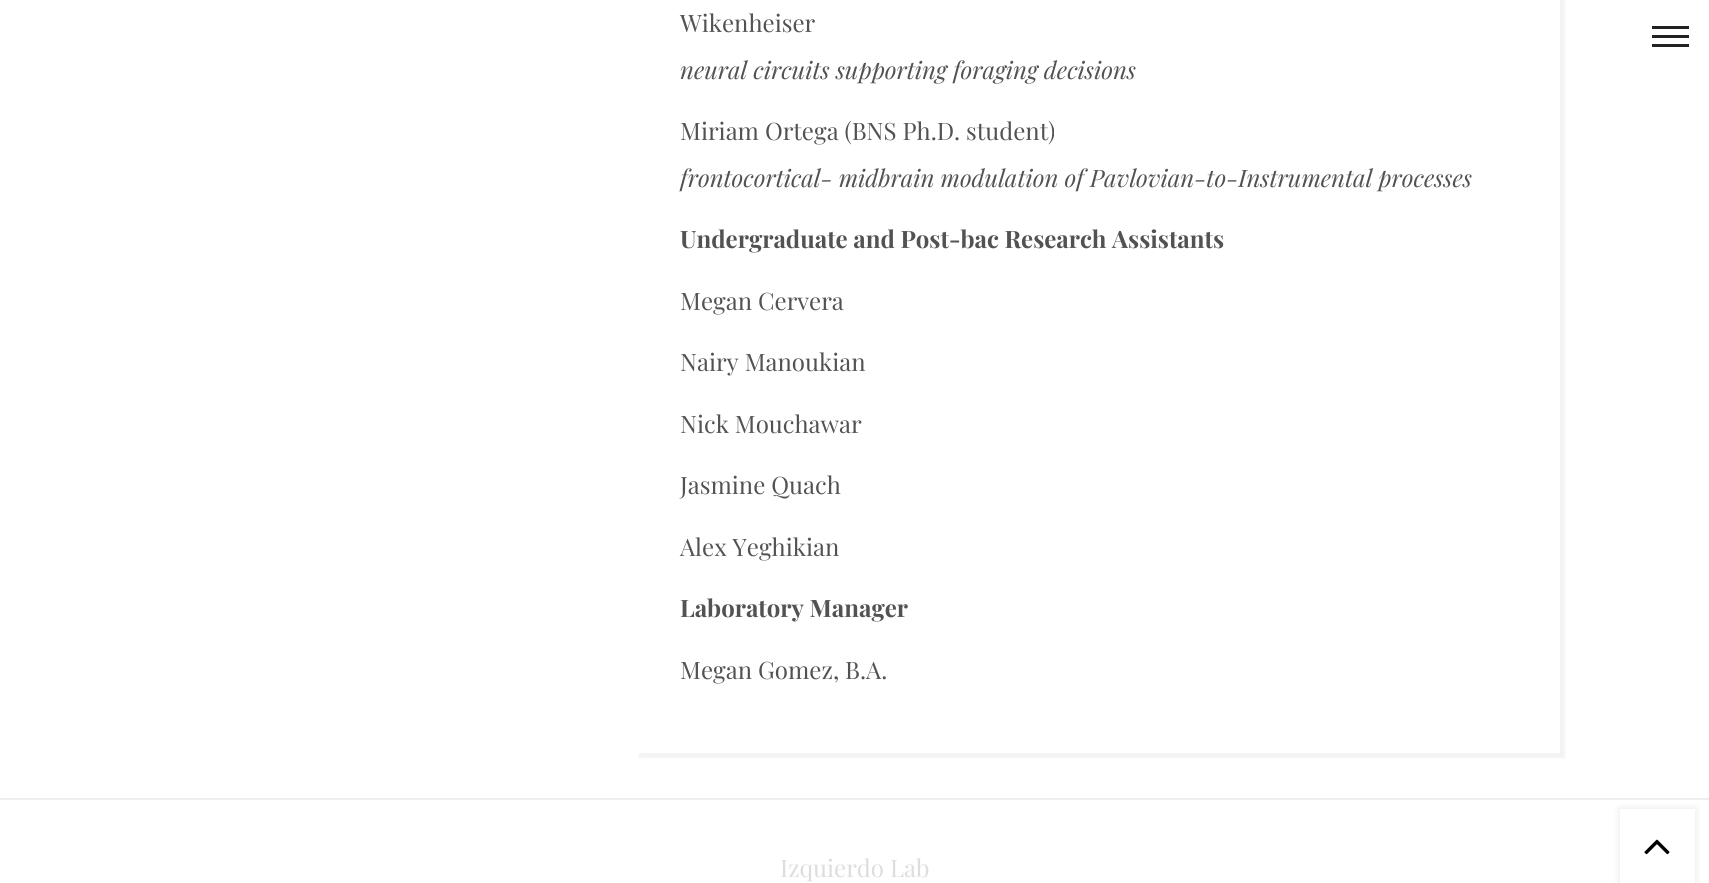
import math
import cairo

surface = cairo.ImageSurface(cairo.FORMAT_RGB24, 1709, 883)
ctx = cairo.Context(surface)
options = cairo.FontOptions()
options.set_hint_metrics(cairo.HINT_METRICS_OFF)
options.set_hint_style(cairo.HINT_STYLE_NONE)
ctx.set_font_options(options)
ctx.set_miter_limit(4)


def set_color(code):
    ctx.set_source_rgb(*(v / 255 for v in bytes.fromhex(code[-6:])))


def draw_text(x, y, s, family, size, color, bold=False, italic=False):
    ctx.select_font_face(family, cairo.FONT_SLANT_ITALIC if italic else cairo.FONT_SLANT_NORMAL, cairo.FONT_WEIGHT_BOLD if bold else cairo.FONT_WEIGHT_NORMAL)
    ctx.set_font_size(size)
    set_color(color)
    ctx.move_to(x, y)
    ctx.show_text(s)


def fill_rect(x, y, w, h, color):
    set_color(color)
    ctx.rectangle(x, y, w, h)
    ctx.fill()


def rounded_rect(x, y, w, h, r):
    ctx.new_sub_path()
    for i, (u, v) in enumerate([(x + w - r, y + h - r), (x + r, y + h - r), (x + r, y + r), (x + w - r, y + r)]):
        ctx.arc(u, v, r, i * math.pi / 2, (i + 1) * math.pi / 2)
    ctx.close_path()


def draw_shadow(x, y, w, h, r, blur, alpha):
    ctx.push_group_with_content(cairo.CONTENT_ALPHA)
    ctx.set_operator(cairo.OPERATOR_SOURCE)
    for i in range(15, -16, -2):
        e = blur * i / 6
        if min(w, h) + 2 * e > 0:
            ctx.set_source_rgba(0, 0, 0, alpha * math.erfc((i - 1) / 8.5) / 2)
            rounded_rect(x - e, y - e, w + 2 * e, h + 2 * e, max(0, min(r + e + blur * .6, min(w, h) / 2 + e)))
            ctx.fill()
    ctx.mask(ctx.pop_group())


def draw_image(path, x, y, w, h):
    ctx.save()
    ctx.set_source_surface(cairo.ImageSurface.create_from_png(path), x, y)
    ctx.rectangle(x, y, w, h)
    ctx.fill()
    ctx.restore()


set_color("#ffffff")
ctx.paint()
ctx.save()
ctx.set_fill_rule(cairo.FILL_RULE_EVEN_ODD)
ctx.new_path()
ctx.move_to(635, 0)
ctx.line_to(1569, 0)
ctx.line_to(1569, 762)
ctx.line_to(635, 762)
ctx.close_path()
ctx.move_to(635, -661)
ctx.line_to(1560, -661)
ctx.line_to(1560, 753)
ctx.line_to(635, 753)
ctx.close_path()
ctx.clip()
set_color("#000000")
draw_shadow(639, -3, 926, 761, 0, 1, 0.05)
ctx.restore()
draw_text(680, 32, "Wikenheiser", "Playfair Display", 24, "#525252")
draw_text(680, 79, "neural circuits supporting foraging decisions", "Playfair Display", 24, "#525252", italic=True)
draw_text(680, 140, "Miriam Ortega (BNS Ph.D. student)", "Playfair Display", 24, "#525252")
draw_text(680, 187, "frontocortical- midbrain modulation of Pavlovian-to-Instrumental processes", "Playfair Display", 24, "#525252", italic=True)
draw_text(680, 248, "Undergraduate and Post-bac Research Assistants", "Playfair Display", 24, "#525252", bold=True)
draw_text(680, 310, "Megan Cervera", "Playfair Display", 24, "#525252")
draw_text(680, 371, "Nairy Manoukian", "Playfair Display", 24, "#525252")
draw_text(680, 433, "Nick Mouchawar", "Playfair Display", 24, "#525252")
draw_text(680, 494, "Jasmine Quach", "Playfair Display", 24, "#525252")
draw_text(680, 556, "Alex Yeghikian", "Playfair Display", 24, "#525252")
draw_text(680, 617, "Laboratory Manager", "Playfair Display", 24, "#525252", bold=True)
draw_text(680, 679, "Megan Gomez, B.A.", "Playfair Display", 24, "#525252")
fill_rect(0, 798, 1709, 2, "#eeeeee")
draw_text(780, 877, "Izquierdo Lab", "Playfair Display", 24, "#dddddd")
fill_rect(1652, 35, 37, 3, "#222222")
fill_rect(1652, 26, 37, 3, "#222222")
fill_rect(1652, 44, 37, 3, "#222222")
ctx.save()
ctx.set_fill_rule(cairo.FILL_RULE_EVEN_ODD)
ctx.new_path()
ctx.move_to(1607, 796)
ctx.line_to(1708, 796)
ctx.line_to(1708, 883)
ctx.line_to(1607, 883)
ctx.close_path()
ctx.move_to(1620, 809)
ctx.line_to(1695, 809)
ctx.line_to(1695, 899)
ctx.line_to(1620, 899)
ctx.close_path()
ctx.clip()
set_color("#000000")
draw_shadow(1620, 809, 75, 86, 0, 4, 0.1)
ctx.restore()
draw_image("assets/img1.png", 1644, 839, 26, 16)
surface.write_to_png("output.png")
